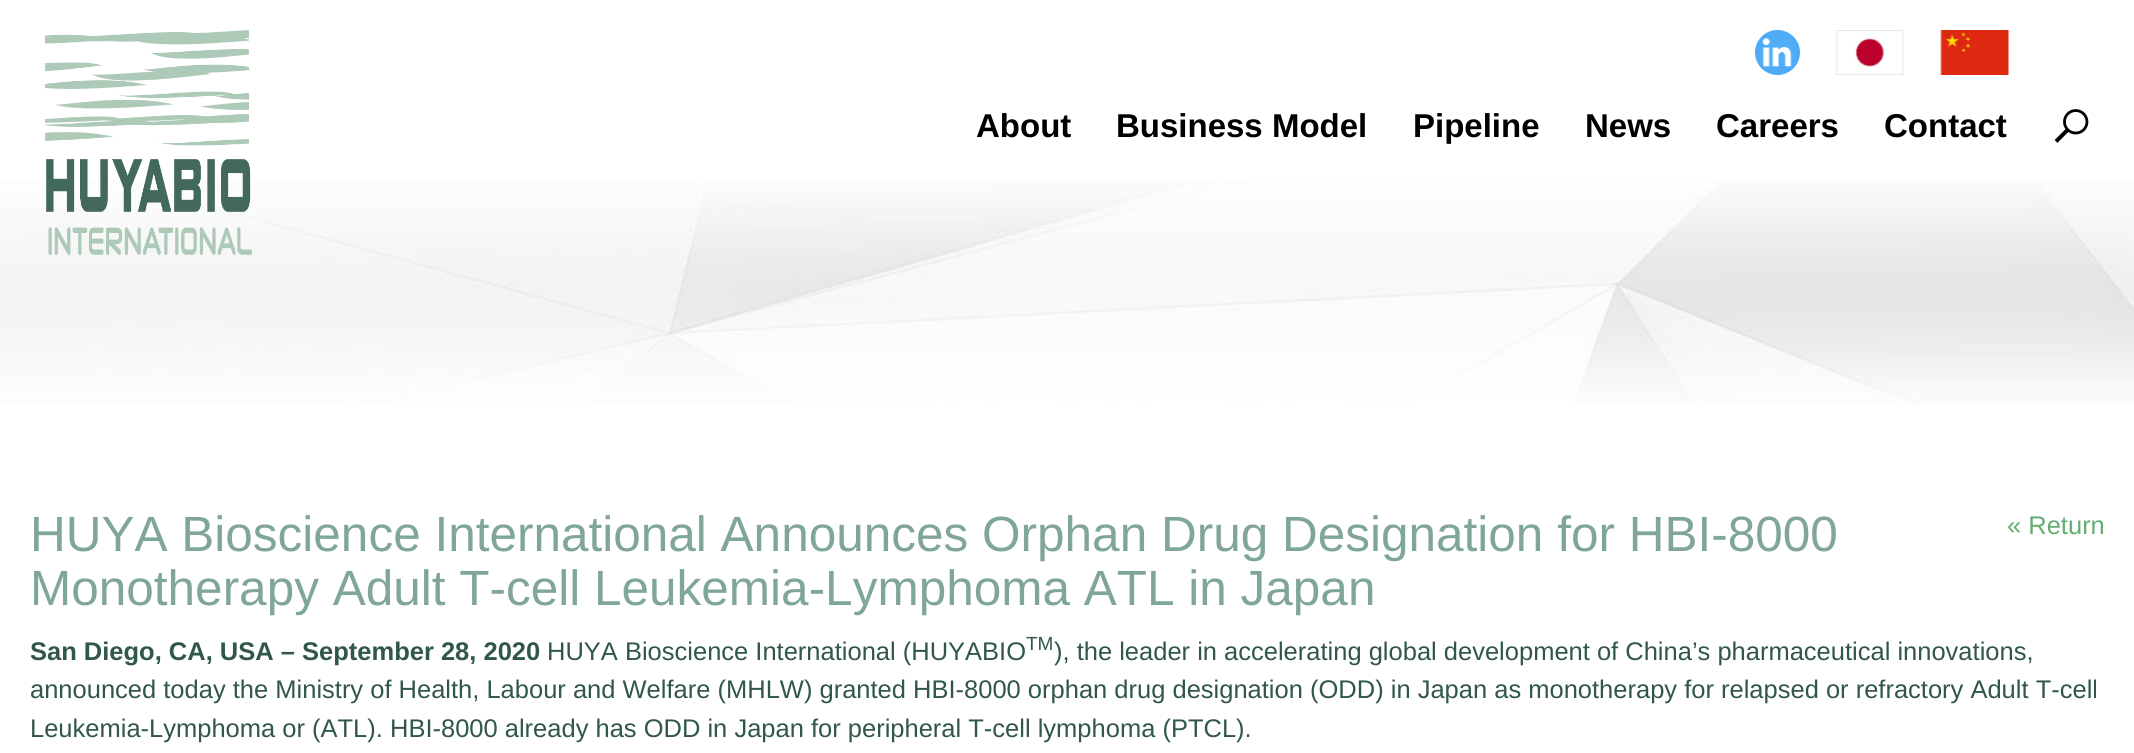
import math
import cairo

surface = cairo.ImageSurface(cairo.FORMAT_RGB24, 2134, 753)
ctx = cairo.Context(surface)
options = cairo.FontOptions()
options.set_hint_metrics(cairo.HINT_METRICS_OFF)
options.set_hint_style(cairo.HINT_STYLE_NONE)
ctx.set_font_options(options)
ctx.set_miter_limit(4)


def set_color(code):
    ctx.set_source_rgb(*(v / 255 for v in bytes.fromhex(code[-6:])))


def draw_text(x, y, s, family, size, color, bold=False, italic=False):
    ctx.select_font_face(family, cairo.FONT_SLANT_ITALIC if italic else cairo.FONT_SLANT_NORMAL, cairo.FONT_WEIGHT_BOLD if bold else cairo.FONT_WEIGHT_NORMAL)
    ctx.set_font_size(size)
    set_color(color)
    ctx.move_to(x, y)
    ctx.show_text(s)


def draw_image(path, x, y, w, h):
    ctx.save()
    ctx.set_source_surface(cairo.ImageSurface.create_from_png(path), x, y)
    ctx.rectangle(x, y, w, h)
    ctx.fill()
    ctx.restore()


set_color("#ffffff")
ctx.paint()
draw_image("assets/img1.png", 0, 180, 2134, 225)
draw_image("assets/img2.png", 45, 30, 207, 225)
set_color("#4dabf7")
ctx.arc(1777.5, 52.5, 22.5, 0, 2 * math.pi)
ctx.fill()
draw_image("assets/img3.png", 1762, 38, 31, 29)
draw_image("assets/img4.png", 1835, 30, 69, 45)
draw_image("assets/img5.png", 1940, 30, 69, 45)
draw_text(976, 137, "About", "Liberation Sans", 33, "#000000", bold=True)
draw_text(1116, 137, "Business Model", "Liberation Sans", 33, "#000000", bold=True)
draw_text(1413, 137, "Pipeline", "Liberation Sans", 33, "#000000", bold=True)
draw_text(1585, 137, "News", "Liberation Sans", 33, "#000000", bold=True)
draw_text(1716, 137, "Careers", "Liberation Sans", 33, "#000000", bold=True)
draw_text(1884, 137, "Contact", "Liberation Sans", 33, "#000000", bold=True)
draw_image("assets/img6.png", 2054, 109, 35, 34)
draw_text(30, 551, "HUYA Bioscience International Announces Orphan Drug Designation for HBI-8000", "Liberation Sans", 49.5, "#7fa696")
draw_text(30, 605, "Monotherapy Adult T-cell Leukemia-Lymphoma ATL in Japan", "Liberation Sans", 49.5, "#7fa696")
draw_text(2007, 534, "« Return", "Liberation Sans", 25.5, "#64ad72")
draw_text(30, 660, "San Diego, CA, USA – September 28, 2020", "Liberation Sans", 25.5, "#305749", bold=True)
draw_text(547, 660, "HUYA Bioscience International (HUYABIO", "Liberation Sans", 25.5, "#305749")
draw_text(1026, 650, "TM", "Liberation Sans", 19, "#305749")
draw_text(1054, 660, "), the leader in accelerating global development of China’s pharmaceutical innovations,", "Liberation Sans", 25.5, "#305749")
draw_text(30, 698, "announced today the Ministry of Health, Labour and Welfare (MHLW) granted HBI-8000 orphan drug designation (ODD) in Japan as monotherapy for relapsed or refractory Adult T-cell", "Liberation Sans", 25.5, "#305749")
draw_text(30, 737, "Leukemia-Lymphoma or (ATL). HBI-8000 already has ODD in Japan for peripheral T-cell lymphoma (PTCL).", "Liberation Sans", 25.5, "#305749")
surface.write_to_png("output.png")
